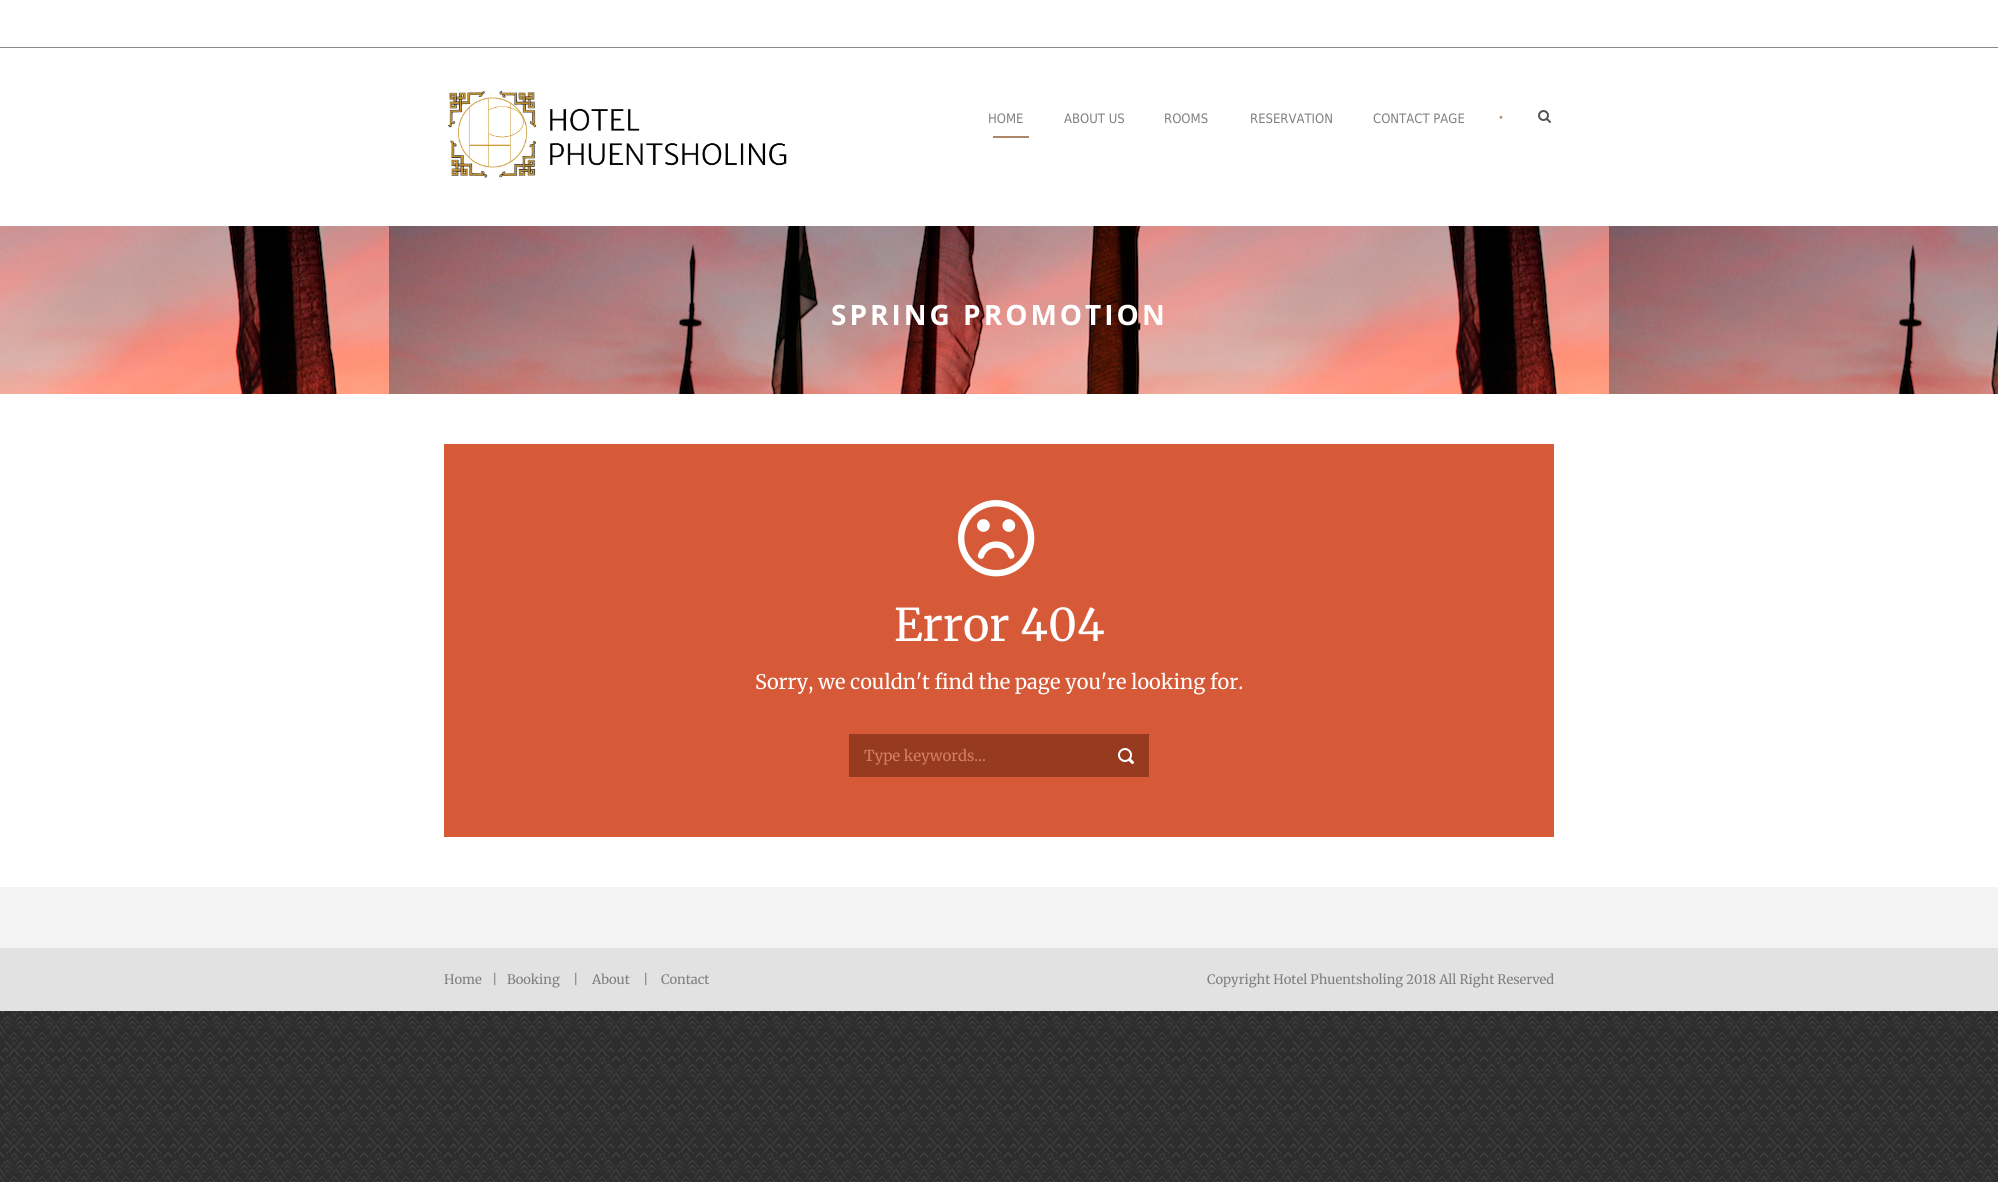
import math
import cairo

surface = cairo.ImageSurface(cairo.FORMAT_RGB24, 1998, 1182)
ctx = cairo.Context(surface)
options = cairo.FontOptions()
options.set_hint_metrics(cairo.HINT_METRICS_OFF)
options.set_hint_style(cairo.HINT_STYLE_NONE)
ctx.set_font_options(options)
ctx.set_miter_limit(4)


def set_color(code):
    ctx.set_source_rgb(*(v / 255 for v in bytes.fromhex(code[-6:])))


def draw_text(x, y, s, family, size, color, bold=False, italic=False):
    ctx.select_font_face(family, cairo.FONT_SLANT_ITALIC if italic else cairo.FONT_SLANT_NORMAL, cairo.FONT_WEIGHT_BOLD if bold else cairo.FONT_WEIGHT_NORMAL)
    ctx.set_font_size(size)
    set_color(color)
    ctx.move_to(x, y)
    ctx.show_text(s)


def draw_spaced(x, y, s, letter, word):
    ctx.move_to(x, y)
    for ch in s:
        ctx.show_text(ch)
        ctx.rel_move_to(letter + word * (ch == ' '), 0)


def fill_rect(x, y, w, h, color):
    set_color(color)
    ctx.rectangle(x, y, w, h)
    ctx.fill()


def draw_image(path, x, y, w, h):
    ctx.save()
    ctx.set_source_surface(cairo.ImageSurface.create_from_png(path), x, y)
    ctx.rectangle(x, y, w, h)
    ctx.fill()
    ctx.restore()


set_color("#ffffff")
ctx.paint()
draw_image("assets/img1.png", 0, 1011, 1998, 171)
fill_rect(0, 47, 1998, 1, "#898989")
draw_image("assets/img2.png", 448, 90, 339, 88)
draw_text(988, 123, "HOME", "DejaVu Sans", 13, "#7f7f7f")
draw_text(1064, 123, "ABOUT US", "DejaVu Sans", 13, "#7f7f7f")
draw_text(1164, 123, "ROOMS", "DejaVu Sans", 13, "#7f7f7f")
draw_text(1250, 123, "RESERVATION", "DejaVu Sans", 13, "#7f7f7f")
draw_text(1373, 123, "CONTACT PAGE", "DejaVu Sans", 13, "#7f7f7f")
draw_text(1498, 122, "•", "Merriweather", 14, "#aa8667")
draw_image("assets/img3.png", 1538, 110, 13, 13)
fill_rect(993, 136, 36, 2, "#aa8667")
draw_image("assets/img4.png", 0, 226, 1998, 168)
ctx.select_font_face("Open Sans", cairo.FONT_SLANT_NORMAL, cairo.FONT_WEIGHT_BOLD)
ctx.set_font_size(28)
set_color("#ffffff")
draw_spaced(831, 325, "SPRING PROMOTION", 3, 0)
fill_rect(444, 444, 1110, 393, "#d65938")
draw_image("assets/img5.png", 958, 500, 77, 77)
draw_text(894, 641, "Error 404", "Merriweather", 45, "#ffffff")
draw_text(755, 689, "Sorry, we couldn't find the page you're looking for.", "Merriweather", 20, "#ffffff")
fill_rect(849, 734, 300, 43, "#963a20")
draw_text(864, 761, "Type keywords...", "Merriweather", 15, "#d57f5c")
draw_image("assets/img6.png", 1118, 748, 16, 16)
fill_rect(0, 887, 1998, 61, "#f3f3f3")
fill_rect(0, 948, 1998, 63, "#e2e2e2")
draw_text(444, 984, "Home", "Merriweather", 13, "#7f7f7f")
draw_text(492, 984, "|", "Merriweather", 13, "#7f7f7f")
draw_text(507, 984, "Booking", "Merriweather", 13, "#7f7f7f")
draw_text(573, 984, "|", "Merriweather", 13, "#7f7f7f")
draw_text(592, 984, "About", "Merriweather", 13, "#7f7f7f")
draw_text(643, 984, "|", "Merriweather", 13, "#7f7f7f")
draw_text(661, 984, "Contact", "Merriweather", 13, "#7f7f7f")
draw_text(1207, 984, "Copyright Hotel Phuentsholing 2018 All Right Reserved", "Merriweather", 13, "#7f7f7f")
surface.write_to_png("output.png")
